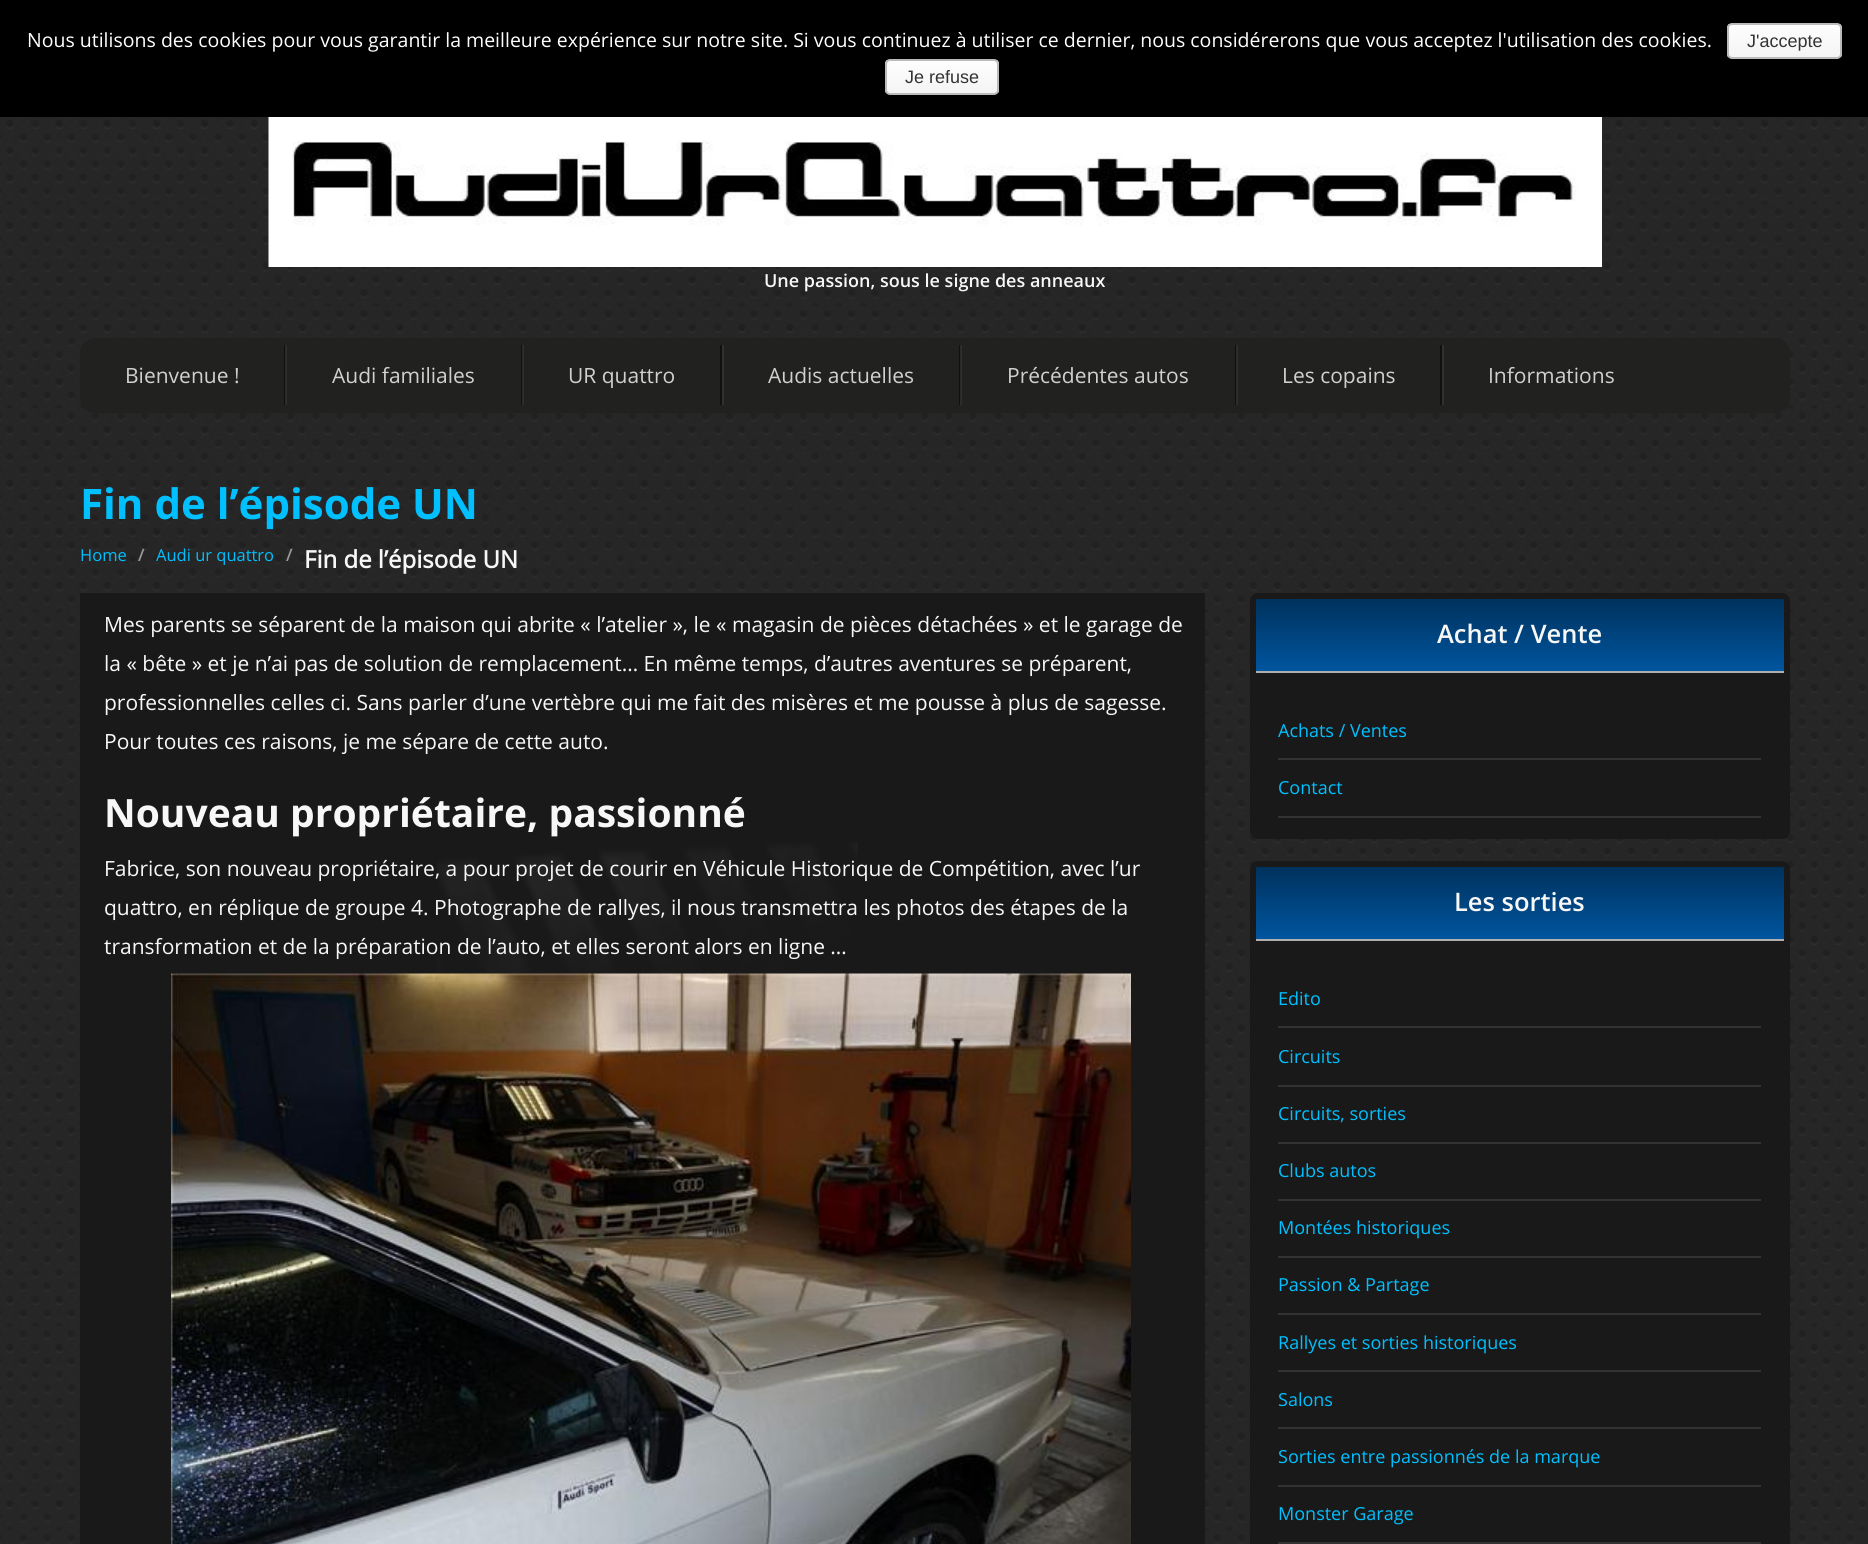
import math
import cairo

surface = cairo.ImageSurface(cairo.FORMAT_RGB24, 1868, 1544)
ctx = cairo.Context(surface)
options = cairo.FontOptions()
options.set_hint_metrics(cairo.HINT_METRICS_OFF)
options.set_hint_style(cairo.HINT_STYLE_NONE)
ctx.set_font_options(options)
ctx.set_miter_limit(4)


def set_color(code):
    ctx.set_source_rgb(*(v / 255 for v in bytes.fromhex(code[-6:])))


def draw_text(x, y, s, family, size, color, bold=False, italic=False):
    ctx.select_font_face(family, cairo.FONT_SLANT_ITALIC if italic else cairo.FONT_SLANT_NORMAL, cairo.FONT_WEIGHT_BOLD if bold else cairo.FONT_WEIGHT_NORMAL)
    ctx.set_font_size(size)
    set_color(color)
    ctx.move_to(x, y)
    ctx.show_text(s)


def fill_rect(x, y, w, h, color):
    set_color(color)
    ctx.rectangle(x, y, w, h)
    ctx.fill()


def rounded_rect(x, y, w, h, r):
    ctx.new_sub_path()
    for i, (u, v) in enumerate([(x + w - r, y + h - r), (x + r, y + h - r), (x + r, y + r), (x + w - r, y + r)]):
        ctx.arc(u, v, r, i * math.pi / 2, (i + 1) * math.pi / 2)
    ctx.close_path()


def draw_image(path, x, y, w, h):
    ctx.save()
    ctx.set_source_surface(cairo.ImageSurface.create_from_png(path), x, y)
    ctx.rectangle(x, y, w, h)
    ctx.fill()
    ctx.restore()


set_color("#ffffff")
ctx.paint()
draw_image("assets/img1.png", 0, 117, 1868, 1427)
fill_rect(0, 0, 1868, 117, "#000000")
draw_text(27, 47, "Nous utilisons des cookies pour vous garantir la meilleure expérience sur notre site. Si vous continuez à utiliser ce dernier, nous considérerons que vous acceptez l'utilisation des cookies.", "Open Sans", 19.5, "#ffffff")
ctx.save()
rounded_rect(1727, 23, 115, 36, 5)
ctx.clip()
gradient = cairo.LinearGradient(1784, 24, 1784, 57)
gradient.add_color_stop_rgba(0, 0.996, 0.996, 0.996, 1)
gradient.add_color_stop_rgba(1, 0.957, 0.957, 0.957, 1)
ctx.set_source(gradient)
ctx.rectangle(1727, 24, 115, 33)
ctx.fill()
ctx.restore()
rounded_rect(1728, 24, 113, 34, 4)
set_color("#bbbbbb")
ctx.stroke()
draw_text(1747, 47, "J'accepte", "Liberation Sans", 18, "#333333")
ctx.save()
rounded_rect(885, 59, 114, 36, 5)
ctx.clip()
gradient = cairo.LinearGradient(942, 60, 942, 93)
gradient.add_color_stop_rgba(0, 0.996, 0.996, 0.996, 1)
gradient.add_color_stop_rgba(1, 0.957, 0.957, 0.957, 1)
ctx.set_source(gradient)
ctx.rectangle(885, 60, 114, 33)
ctx.fill()
ctx.restore()
rounded_rect(886, 60, 112, 34, 4)
set_color("#bbbbbb")
ctx.stroke()
draw_text(905, 83, "Je refuse", "Liberation Sans", 18, "#333333")
draw_image("assets/img2.png", 268, 117, 1334, 150)
draw_text(764, 287, "Une passion, sous le signe des anneaux", "Open Sans SemiBold", 18, "#f7f7f7")
set_color("#212120")
rounded_rect(80, 338, 1710, 75, 15)
ctx.fill()
fill_rect(284, 345, 2, 60, "#10100f")
draw_text(125, 383, "Bienvenue !", "Open Sans", 21, "#d0d0d0")
fill_rect(521, 345, 2, 60, "#10100f")
ctx.set_source_rgba(0.216, 0.212, 0.212, 0.7)
ctx.rectangle(285, 345, 2, 60)
ctx.fill()
draw_text(332, 383, "Audi familiales", "Open Sans", 21, "#d0d0d0")
fill_rect(720, 345, 2, 60, "#10100f")
ctx.set_source_rgba(0.216, 0.212, 0.212, 0.7)
ctx.rectangle(522, 345, 2, 60)
ctx.fill()
draw_text(568, 383, "UR quattro", "Open Sans", 21, "#d0d0d0")
fill_rect(959, 345, 2, 60, "#10100f")
fill_rect(722, 345, 2, 60, "#30302f")
draw_text(768, 383, "Audis actuelles", "Open Sans", 21, "#d0d0d0")
fill_rect(1235, 345, 2, 60, "#10100f")
ctx.set_source_rgba(0.216, 0.212, 0.212, 0.7)
ctx.rectangle(960, 345, 2, 60)
ctx.fill()
draw_text(1007, 383, "Précédentes autos", "Open Sans", 21, "#d0d0d0")
fill_rect(1440, 345, 2, 60, "#10100f")
ctx.set_source_rgba(0.216, 0.212, 0.212, 0.7)
ctx.rectangle(1236, 345, 2, 60)
ctx.fill()
draw_text(1282, 383, "Les copains", "Open Sans", 21, "#d0d0d0")
fill_rect(1442, 345, 2, 60, "#30302f")
draw_text(1488, 383, "Informations", "Open Sans", 21, "#d0d0d0")
draw_text(80, 519, "Fin de l’épisode UN", "Open Sans", 42, "#00c0ff", bold=True)
draw_text(80, 561, "Home", "Open Sans", 16.5, "#00c0ff")
draw_text(138, 561, "/", "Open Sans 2", 16.5, "#999999", bold=True)
draw_text(156, 561, "Audi ur quattro", "Open Sans", 16.5, "#00c0ff")
draw_text(286, 561, "/", "Open Sans 2", 16.5, "#999999", bold=True)
draw_text(304, 568, "Fin de l’épisode UN", "Open Sans 2", 24, "#f7f7f7", bold=True)
fill_rect(80, 593, 1125, 951, "#191919")
draw_image("assets/img3.png", 437, 842, 421, 132)
draw_text(104, 632, "Mes parents se séparent de la maison qui abrite « l’atelier », le « magasin de pièces détachées » et le garage de", "Open Sans", 21, "#f7f7f7")
draw_text(104, 671, "la « bête » et je n’ai pas de solution de remplacement… En même temps, d’autres aventures se préparent,", "Open Sans", 21, "#f7f7f7")
draw_text(104, 710, "professionnelles celles ci. Sans parler d’une vertèbre qui me fait des misères et me pousse à plus de sagesse.", "Open Sans", 21, "#f7f7f7")
draw_text(104, 749, "Pour toutes ces raisons, je me sépare de cette auto.", "Open Sans", 21, "#f7f7f7")
draw_text(104, 827, "Nouveau propriétaire, passionné", "Open Sans", 39, "#f7f7f7", bold=True)
draw_text(104, 876, "Fabrice, son nouveau propriétaire, a pour projet de courir en Véhicule Historique de Compétition, avec l’ur", "Open Sans", 21, "#f7f7f7")
draw_text(104, 915, "quattro, en réplique de groupe 4. Photographe de rallyes, il nous transmettra les photos des étapes de la", "Open Sans", 21, "#f7f7f7")
draw_text(104, 954, "transformation et de la préparation de l’auto, et elles seront alors en ligne …", "Open Sans", 21, "#f7f7f7")
draw_image("assets/img4.png", 171, 973, 960, 571)
set_color("#191919")
rounded_rect(1253, 596, 534, 240, 5)
ctx.fill_preserve()
ctx.set_line_width(6)
ctx.stroke()
gradient = cairo.LinearGradient(1520, 599, 1520, 671)
gradient.add_color_stop_rgba(0, 0, 0.196, 0.365, 1)
gradient.add_color_stop_rgba(1, 0, 0.333, 0.624, 1)
ctx.set_source(gradient)
ctx.rectangle(1256, 599, 528, 72)
ctx.fill()
fill_rect(1256, 671, 528, 2, "#afafaf")
draw_text(1437, 643, "Achat / Vente", "Open Sans SemiBold", 25.5, "#f7f7f7")
fill_rect(1278, 758, 483, 2, "#333333")
draw_text(1278, 737, "Achats / Ventes", "Open Sans", 18, "#00c0ff")
fill_rect(1278, 816, 483, 2, "#333333")
draw_text(1278, 794, "Contact", "Open Sans", 18, "#00c0ff")
set_color("#191919")
rounded_rect(1253, 864, 534, 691, 5)
ctx.fill_preserve()
ctx.stroke()
gradient = cairo.LinearGradient(1520, 867, 1520, 939)
gradient.add_color_stop_rgba(0, 0, 0.196, 0.365, 1)
gradient.add_color_stop_rgba(1, 0, 0.333, 0.624, 1)
ctx.set_source(gradient)
ctx.rectangle(1256, 867, 528, 72)
ctx.fill()
fill_rect(1256, 939, 528, 2, "#afafaf")
draw_text(1454, 911, "Les sorties", "Open Sans SemiBold", 25.5, "#f7f7f7")
fill_rect(1278, 1026, 483, 2, "#333333")
draw_text(1278, 1005, "Edito", "Open Sans", 18, "#00c0ff")
fill_rect(1278, 1085, 483, 2, "#333333")
draw_text(1278, 1063, "Circuits", "Open Sans", 18, "#00c0ff")
fill_rect(1278, 1142, 483, 2, "#333333")
draw_text(1278, 1120, "Circuits, sorties", "Open Sans", 18, "#00c0ff")
fill_rect(1278, 1199, 483, 2, "#333333")
draw_text(1278, 1177, "Clubs autos", "Open Sans", 18, "#00c0ff")
fill_rect(1278, 1256, 483, 2, "#333333")
draw_text(1278, 1234, "Montées historiques", "Open Sans", 18, "#00c0ff")
fill_rect(1278, 1313, 483, 2, "#333333")
draw_text(1278, 1291, "Passion & Partage", "Open Sans", 18, "#00c0ff")
fill_rect(1278, 1370, 483, 2, "#333333")
draw_text(1278, 1349, "Rallyes et sorties historiques", "Open Sans", 18, "#00c0ff")
fill_rect(1278, 1427, 483, 2, "#333333")
draw_text(1278, 1406, "Salons", "Open Sans", 18, "#00c0ff")
fill_rect(1278, 1485, 483, 2, "#333333")
draw_text(1278, 1463, "Sorties entre passionnés de la marque", "Open Sans", 18, "#00c0ff")
fill_rect(1278, 1542, 483, 2, "#333333")
draw_text(1278, 1520, "Monster Garage", "Open Sans", 18, "#00c0ff")
surface.write_to_png("output.png")
